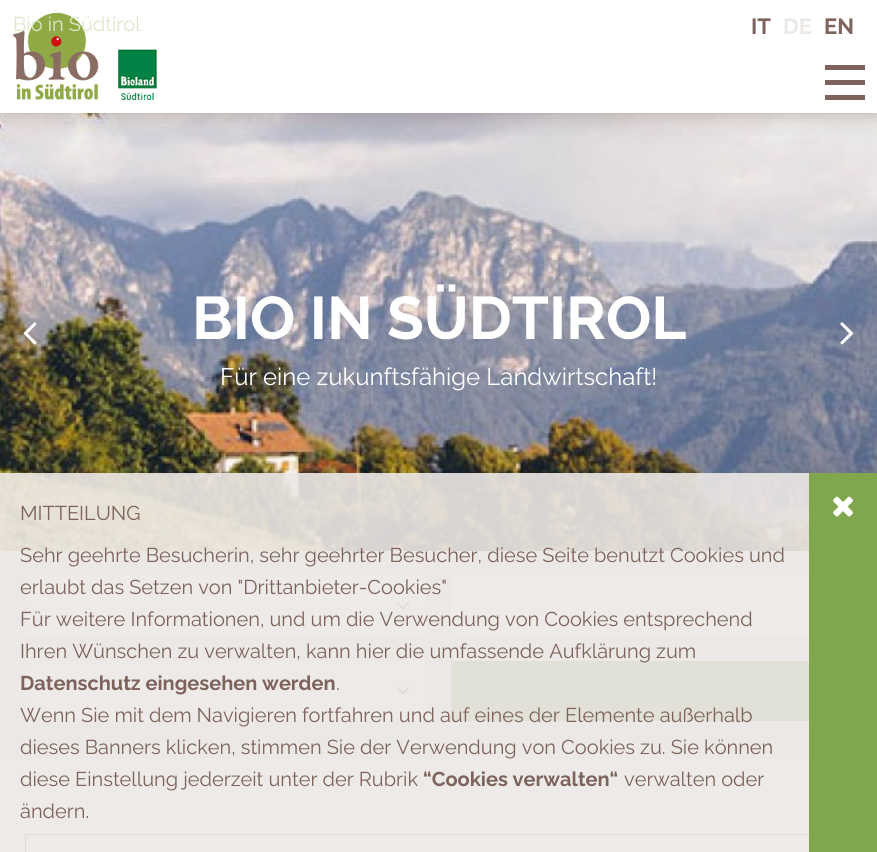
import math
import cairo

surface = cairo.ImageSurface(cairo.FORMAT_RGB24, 877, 852)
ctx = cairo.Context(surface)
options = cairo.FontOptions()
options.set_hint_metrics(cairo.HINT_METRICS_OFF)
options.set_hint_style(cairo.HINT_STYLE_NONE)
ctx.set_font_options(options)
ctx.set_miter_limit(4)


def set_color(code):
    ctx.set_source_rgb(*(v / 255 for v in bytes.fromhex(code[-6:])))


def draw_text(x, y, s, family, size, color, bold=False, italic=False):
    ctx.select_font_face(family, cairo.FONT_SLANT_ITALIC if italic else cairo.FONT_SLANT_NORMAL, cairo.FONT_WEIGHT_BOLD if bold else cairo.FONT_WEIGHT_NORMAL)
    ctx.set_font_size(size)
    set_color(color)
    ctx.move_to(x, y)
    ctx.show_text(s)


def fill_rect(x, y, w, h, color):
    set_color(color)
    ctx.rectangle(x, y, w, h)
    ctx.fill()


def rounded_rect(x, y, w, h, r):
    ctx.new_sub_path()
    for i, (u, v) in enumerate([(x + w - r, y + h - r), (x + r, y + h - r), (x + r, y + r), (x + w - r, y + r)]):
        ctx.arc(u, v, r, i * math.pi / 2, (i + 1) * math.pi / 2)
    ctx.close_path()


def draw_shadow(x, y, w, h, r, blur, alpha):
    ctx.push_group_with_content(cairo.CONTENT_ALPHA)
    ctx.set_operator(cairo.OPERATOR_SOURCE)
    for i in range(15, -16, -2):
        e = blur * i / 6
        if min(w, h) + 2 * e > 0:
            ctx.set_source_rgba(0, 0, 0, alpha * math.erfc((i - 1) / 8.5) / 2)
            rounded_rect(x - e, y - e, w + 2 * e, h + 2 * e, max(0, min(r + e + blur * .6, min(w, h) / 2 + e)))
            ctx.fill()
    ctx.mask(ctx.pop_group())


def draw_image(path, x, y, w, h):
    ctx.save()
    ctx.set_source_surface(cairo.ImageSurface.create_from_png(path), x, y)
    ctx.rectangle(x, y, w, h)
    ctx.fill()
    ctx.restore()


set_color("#ffffff")
ctx.paint()
draw_image("assets/img2.png", 0, 113, 877, 438)
set_color("#7d635b")
draw_shadow(0, 0, 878, 113, 0, 12.5, 0.5)
fill_rect(0, 0, 877, 113, "#ffffff")
draw_image("assets/img1.png", 12, 12, 145, 88)
draw_text(13, 31, "Bio in Südtirol", "Raleway", 20, "#dfe7ca")
draw_text(751, 34, "IT", "Raleway", 22, "#7d635b", bold=True)
draw_text(783, 34, "DE", "Raleway", 22, "#ece8e6", bold=True)
draw_text(824, 34, "EN", "Raleway", 22, "#7d635b", bold=True)
fill_rect(825, 65, 40, 5, "#7d635b")
fill_rect(825, 80, 40, 5, "#7d635b")
fill_rect(825, 95, 40, 5, "#7d635b")
draw_text(192, 339, "BIO IN SÜDTIROL", "Raleway", 60, "#ffffff", bold=True)
draw_text(220, 385, "Für eine zukunftsfähige Landwirtschaft!", "Raleway", 24, "#ffffff")
draw_image("assets/img3.png", 23, 322, 14, 23)
draw_image("assets/img4.png", 840, 322, 14, 23)
fill_rect(0, 551, 809, 208, "#ece8e6")
fill_rect(25, 576, 401, 60, "#ffffff")
draw_image("assets/img6.png", 396, 602, 14, 8)
fill_rect(451, 576, 358, 60, "#ffffff")
fill_rect(25, 661, 401, 60, "#ffffff")
draw_image("assets/img6.png", 396, 687, 14, 8)
fill_rect(451, 661, 358, 60, "#80a64e")
ctx.rectangle(25.5, 834.5, 827, 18)
set_color("#7d635b")
ctx.set_line_width(1)
ctx.stroke()
ctx.set_source_rgba(0.925, 0.91, 0.902, 0.9)
ctx.rectangle(0, 473, 809, 379)
ctx.fill()
draw_text(20, 520, "MITTEILUNG", "Raleway", 20, "#7d635b")
draw_text(20, 562, "Sehr geehrte Besucherin, sehr geehrter Besucher, diese Seite benutzt Cookies und", "Raleway", 20, "#7d635b")
draw_text(20, 594, "erlaubt das Setzen von \"Drittanbieter-Cookies\"", "Raleway", 20, "#7d635b")
draw_text(20, 626, "Für weitere Informationen, und um die Verwendung von Cookies entsprechend", "Raleway", 20, "#7d635b")
draw_text(20, 658, "Ihren Wünschen zu verwalten, kann hier die umfassende Aufklärung zum", "Raleway", 20, "#7d635b")
draw_text(20, 690, "Datenschutz eingesehen werden", "Raleway", 20, "#7d635b", bold=True)
draw_text(336, 690, ".", "Raleway", 20, "#7d635b")
draw_text(20, 722, "Wenn Sie mit dem Navigieren fortfahren und auf eines der Elemente außerhalb", "Raleway", 20, "#7d635b")
draw_text(20, 754, "dieses Banners klicken, stimmen Sie der Verwendung von Cookies zu. Sie können", "Raleway", 20, "#7d635b")
draw_text(20, 786, "diese Einstellung jederzeit unter der Rubrik", "Raleway", 20, "#7d635b")
draw_text(423, 786, "“Cookies verwalten“", "Raleway", 20, "#7d635b", bold=True)
draw_text(624, 786, "verwalten oder", "Raleway", 20, "#7d635b")
draw_text(20, 818, "ändern.", "Raleway", 20, "#7d635b")
fill_rect(809, 473, 68, 379, "#80a64e")
draw_image("assets/img5.png", 833, 496, 20, 21)
surface.write_to_png("output.png")
